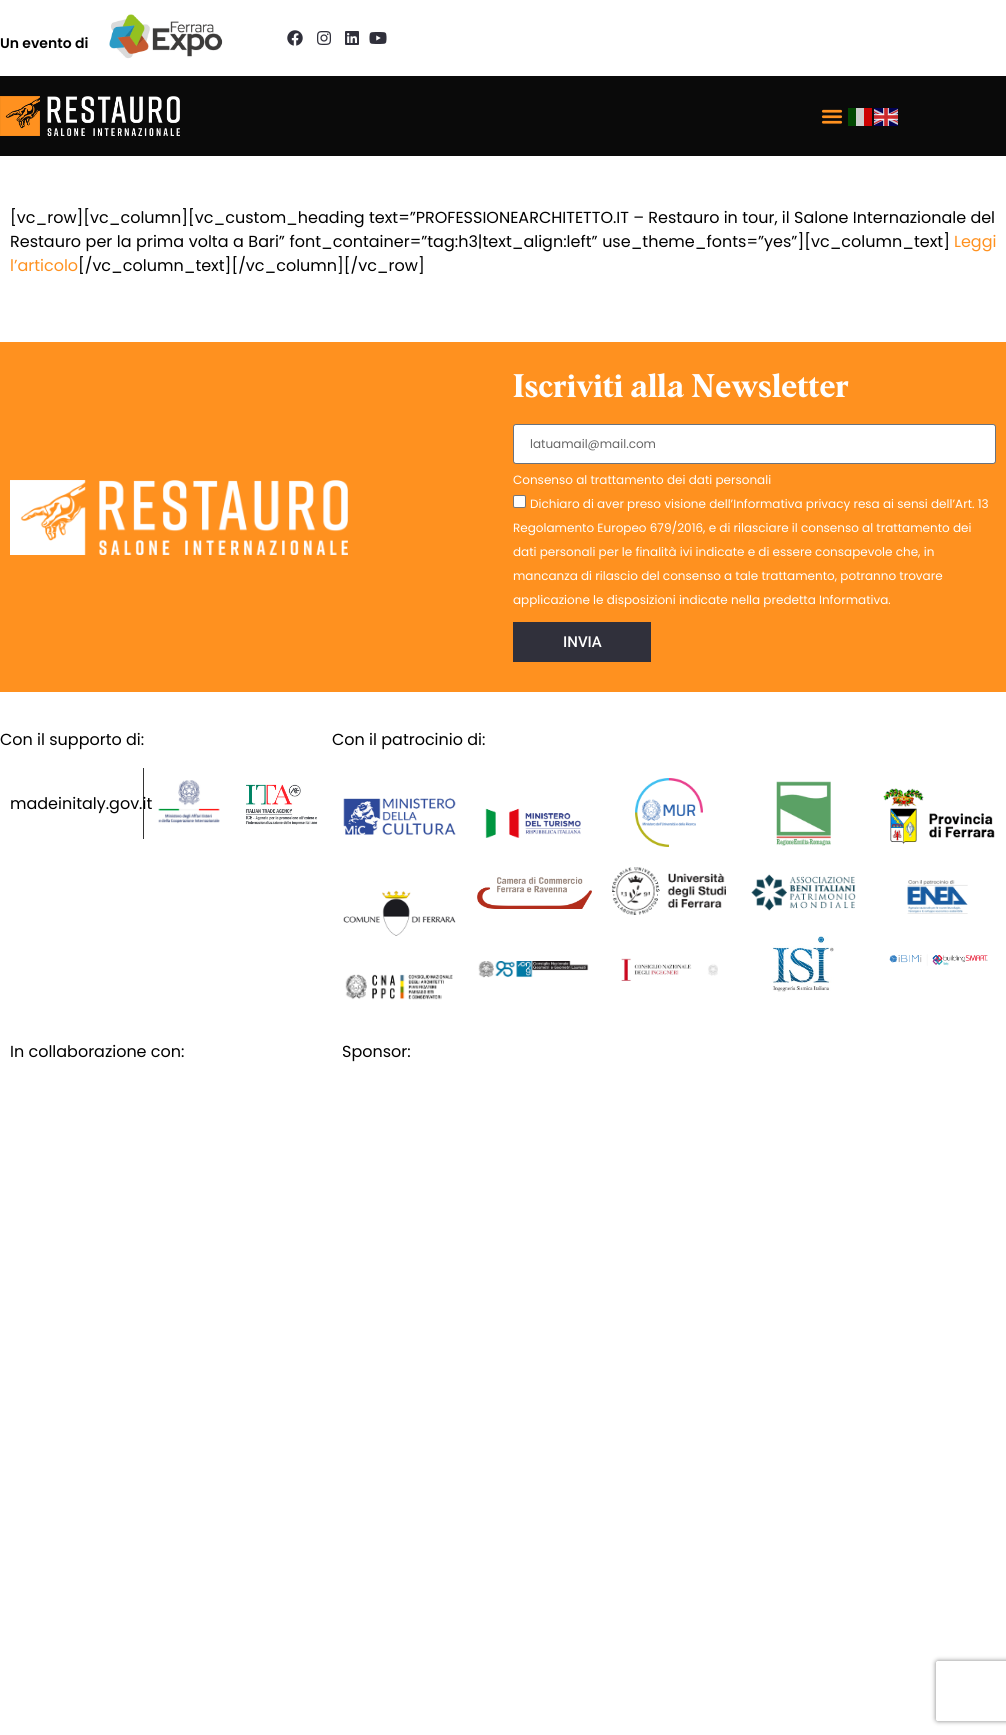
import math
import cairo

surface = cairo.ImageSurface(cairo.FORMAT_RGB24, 1006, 1735)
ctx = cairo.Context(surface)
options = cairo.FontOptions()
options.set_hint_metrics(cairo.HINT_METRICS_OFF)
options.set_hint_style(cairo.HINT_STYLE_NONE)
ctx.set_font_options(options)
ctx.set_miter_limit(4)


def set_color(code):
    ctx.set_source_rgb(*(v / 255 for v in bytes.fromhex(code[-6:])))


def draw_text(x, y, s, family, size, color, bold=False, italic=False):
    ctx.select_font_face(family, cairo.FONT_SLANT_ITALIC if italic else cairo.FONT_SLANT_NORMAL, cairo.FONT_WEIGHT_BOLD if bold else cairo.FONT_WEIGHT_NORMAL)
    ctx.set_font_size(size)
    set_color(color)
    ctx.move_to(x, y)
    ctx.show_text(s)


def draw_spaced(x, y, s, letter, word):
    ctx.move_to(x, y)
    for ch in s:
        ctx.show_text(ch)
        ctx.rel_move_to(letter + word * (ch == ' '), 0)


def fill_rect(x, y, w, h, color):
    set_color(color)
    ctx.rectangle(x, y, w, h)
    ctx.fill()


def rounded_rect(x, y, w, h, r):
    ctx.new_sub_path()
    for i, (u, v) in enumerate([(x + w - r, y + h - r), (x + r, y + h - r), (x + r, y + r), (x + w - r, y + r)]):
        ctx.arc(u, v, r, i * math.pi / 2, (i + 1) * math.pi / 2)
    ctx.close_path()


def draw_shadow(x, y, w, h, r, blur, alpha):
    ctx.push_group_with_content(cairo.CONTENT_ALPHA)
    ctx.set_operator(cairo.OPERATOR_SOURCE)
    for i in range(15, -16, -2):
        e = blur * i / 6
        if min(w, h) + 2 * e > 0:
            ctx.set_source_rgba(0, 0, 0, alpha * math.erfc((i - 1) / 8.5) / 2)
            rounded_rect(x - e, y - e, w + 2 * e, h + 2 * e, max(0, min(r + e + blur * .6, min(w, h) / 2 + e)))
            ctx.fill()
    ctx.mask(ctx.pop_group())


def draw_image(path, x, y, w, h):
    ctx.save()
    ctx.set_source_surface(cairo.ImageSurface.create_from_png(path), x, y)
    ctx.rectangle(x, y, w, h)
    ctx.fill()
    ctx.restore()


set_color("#ffffff")
ctx.paint()
draw_text(0, 48, "Un evento di", "Poppins SemiBold", 14, "#000000")
draw_image("assets/img1.png", 109, 14, 114, 45)
draw_image("assets/img2.png", 287, 30, 16, 16)
draw_image("assets/img3.png", 317, 31, 14, 14)
draw_image("assets/img4.png", 345, 31, 14, 14)
draw_image("assets/img5.png", 369, 32, 18, 12)
fill_rect(0, 76, 1006, 80, "#0a0a0a")
draw_image("assets/img6.png", 0, 96, 180, 40)
draw_image("assets/img7.png", 821, 109, 22, 15)
fill_rect(848, 108, 8, 18, "#024802")
fill_rect(856, 108, 8, 18, "#cecece")
fill_rect(864, 108, 8, 18, "#cc0202")
draw_image("assets/img8.png", 874, 108, 24, 18)
draw_text(10, 223, "[vc_row][vc_column][vc_custom_heading text=”PROFESSIONEARCHITETTO.IT – Restauro in tour, il Salone Internazionale del", "Poppins", 16, "#000000")
draw_spaced(10, 247, "Restauro per la prima volta a Bari” font_container=”tag:h3|text_align:left” use_theme_fonts=”yes”][vc_column_text]", 0, 0.25)
draw_text(954, 247, "Leggi", "Poppins", 16, "#ff911f")
draw_text(10, 271, "l’articolo", "Poppins", 16, "#ff911f")
draw_text(78, 271, "[/vc_column_text][/vc_column][/vc_row]", "Poppins", 16, "#000000")
fill_rect(0, 342, 1006, 350, "#ff911f")
draw_image("assets/img9.png", 10, 480, 338, 75)
draw_text(513, 397, "Iscriviti alla Newsletter", "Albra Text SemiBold", 32, "#ffffff")
rounded_rect(513.5, 424.5, 482, 39, 2.5)
ctx.fill_preserve()
set_color("#69727d")
ctx.set_line_width(1)
ctx.stroke()
draw_text(530, 448, "latuamail@mail.com", "Poppins", 12, "#666666")
draw_text(513, 484, "Consenso al trattamento dei dati personali", "Poppins", 12, "#ffffff")
rounded_rect(513.5, 495.5, 12, 12, 1.5)
ctx.fill_preserve()
set_color("#767676")
ctx.stroke()
draw_text(530, 508, "Dichiaro di aver preso visione dell’Informativa privacy resa ai sensi dell’Art. 13", "Poppins", 12, "#ffffff")
draw_text(513, 532, "Regolamento Europeo 679/2016, e di rilasciare il consenso al trattamento dei", "Poppins", 12, "#ffffff")
draw_text(513, 556, "dati personali per le finalità ivi indicate e di essere consapevole che, in", "Poppins", 12, "#ffffff")
draw_text(513, 580, "mancanza di rilascio del consenso a tale trattamento, potranno trovare", "Poppins", 12, "#ffffff")
draw_text(513, 604, "applicazione le disposizioni indicate nella predetta Informativa.", "Poppins", 12, "#ffffff")
fill_rect(513, 622, 138, 40, "#30303b")
draw_text(563, 647, "INVIA", "Roboto Medium", 15, "#ffffff")
ctx.save()
ctx.set_fill_rule(cairo.FILL_RULE_EVEN_ODD)
ctx.new_path()
ctx.move_to(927, 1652)
ctx.line_to(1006, 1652)
ctx.line_to(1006, 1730)
ctx.line_to(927, 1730)
ctx.close_path()
ctx.move_to(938, 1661)
ctx.line_to(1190, 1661)
ctx.curve_to(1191, 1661, 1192, 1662, 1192, 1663)
ctx.line_to(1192, 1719)
ctx.curve_to(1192, 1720, 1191, 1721, 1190, 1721)
ctx.line_to(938, 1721)
ctx.curve_to(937, 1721, 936, 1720, 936, 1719)
ctx.line_to(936, 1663)
ctx.curve_to(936, 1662, 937, 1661, 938, 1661)
ctx.close_path()
ctx.clip()
set_color("#808080")
draw_shadow(936, 1661, 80, 60, 2, 2.5, 1)
ctx.restore()
draw_text(0, 745, "Con il supporto di:", "Poppins", 16, "#000000")
fill_rect(143, 768, 1, 71, "#333333")
draw_text(10, 809, "madeinitaly.gov.it", "Poppins", 16, "#000000")
draw_image("assets/img10.png", 158, 780, 62, 44)
draw_image("assets/img11.png", 245, 784, 73, 41)
draw_text(332, 745, "Con il patrocinio di:", "Poppins", 16, "#000000")
draw_image("assets/img12.png", 343, 798, 113, 37)
draw_image("assets/img13.png", 343, 890, 113, 46)
draw_image("assets/img14.png", 345, 974, 108, 26)
draw_image("assets/img15.png", 485, 808, 96, 30)
draw_image("assets/img16.png", 477, 877, 115, 32)
draw_image("assets/img17.png", 478, 961, 111, 17)
draw_image("assets/img18.png", 635, 778, 68, 69)
draw_image("assets/img19.png", 612, 867, 114, 48)
draw_image("assets/img20.png", 621, 958, 97, 23)
draw_image("assets/img21.png", 776, 781, 55, 65)
draw_image("assets/img22.png", 751, 874, 105, 37)
draw_image("assets/img23.png", 772, 936, 62, 56)
draw_image("assets/img24.png", 883, 788, 112, 57)
draw_image("assets/img25.png", 907, 880, 61, 34)
draw_image("assets/img26.png", 889, 954, 99, 12)
draw_text(10, 1057, "In collaborazione con:", "Poppins", 16, "#000000")
draw_text(342, 1057, "Sponsor:", "Poppins", 16, "#000000")
surface.write_to_png("output.png")
